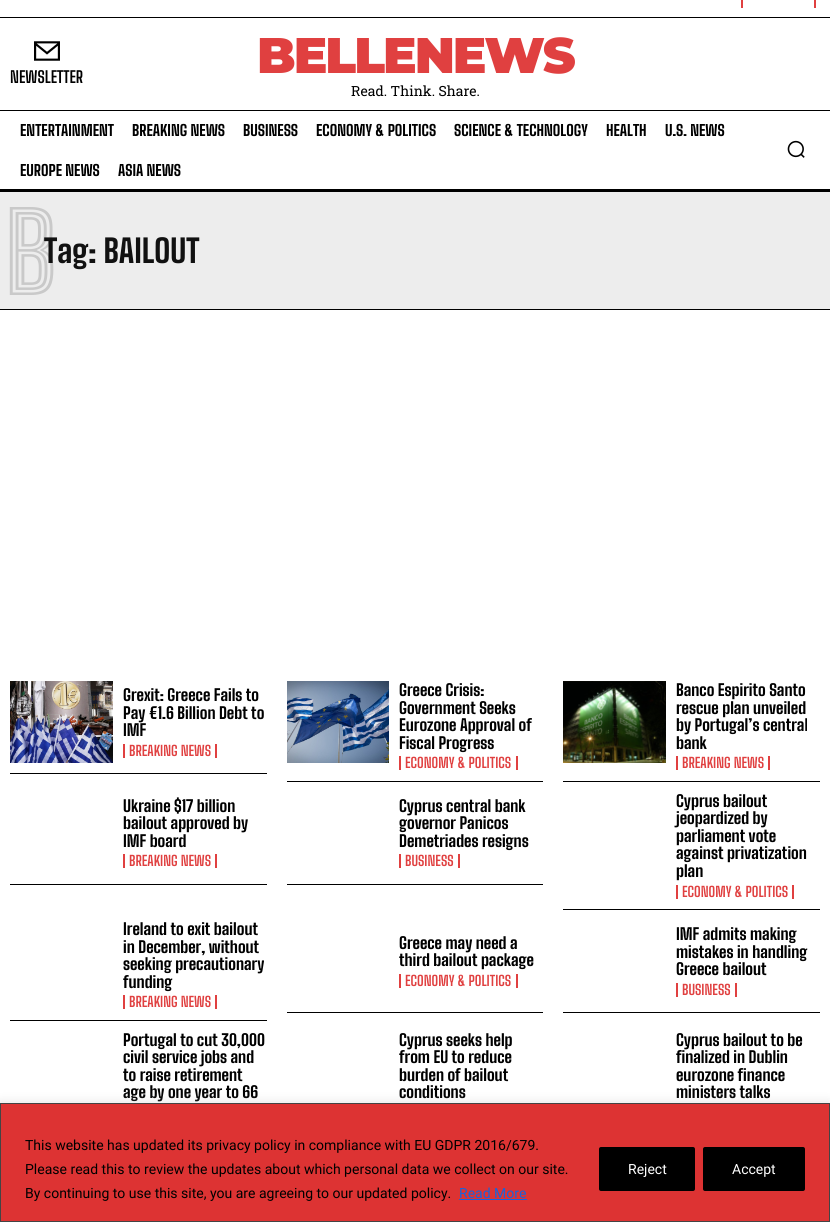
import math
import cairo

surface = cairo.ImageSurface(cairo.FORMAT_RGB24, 830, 1222)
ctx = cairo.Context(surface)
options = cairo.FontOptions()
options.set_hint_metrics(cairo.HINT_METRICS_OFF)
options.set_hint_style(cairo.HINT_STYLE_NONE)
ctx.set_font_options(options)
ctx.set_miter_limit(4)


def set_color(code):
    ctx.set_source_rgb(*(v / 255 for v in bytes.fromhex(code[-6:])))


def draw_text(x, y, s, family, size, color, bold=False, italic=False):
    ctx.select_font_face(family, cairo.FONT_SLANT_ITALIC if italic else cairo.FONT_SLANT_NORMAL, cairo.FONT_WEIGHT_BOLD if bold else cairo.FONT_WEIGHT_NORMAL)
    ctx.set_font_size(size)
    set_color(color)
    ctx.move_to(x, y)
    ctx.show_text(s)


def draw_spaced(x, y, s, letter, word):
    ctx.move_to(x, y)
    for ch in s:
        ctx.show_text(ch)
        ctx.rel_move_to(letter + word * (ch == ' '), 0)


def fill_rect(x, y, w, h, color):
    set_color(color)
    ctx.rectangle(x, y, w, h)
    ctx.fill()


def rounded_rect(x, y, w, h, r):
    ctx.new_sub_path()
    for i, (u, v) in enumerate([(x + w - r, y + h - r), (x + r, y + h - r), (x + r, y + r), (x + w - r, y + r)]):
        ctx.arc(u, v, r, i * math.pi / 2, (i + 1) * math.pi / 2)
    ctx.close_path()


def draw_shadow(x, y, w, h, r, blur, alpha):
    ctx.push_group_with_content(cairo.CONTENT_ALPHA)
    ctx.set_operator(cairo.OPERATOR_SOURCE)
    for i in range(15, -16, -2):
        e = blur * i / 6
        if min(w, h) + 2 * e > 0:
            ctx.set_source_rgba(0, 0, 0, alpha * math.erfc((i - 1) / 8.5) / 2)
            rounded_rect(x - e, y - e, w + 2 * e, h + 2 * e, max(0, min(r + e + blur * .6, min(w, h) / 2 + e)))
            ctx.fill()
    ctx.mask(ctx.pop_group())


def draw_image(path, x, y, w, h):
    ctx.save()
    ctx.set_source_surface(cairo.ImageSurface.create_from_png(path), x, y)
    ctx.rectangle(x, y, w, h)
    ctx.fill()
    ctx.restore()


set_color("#ffffff")
ctx.paint()
fill_rect(814, 0, 2, 8, "#e04040")
fill_rect(741, 0, 2, 8, "#e04040")
fill_rect(0, 17, 830, 1, "#000000")
draw_image("assets/img1.png", 34, 41, 26, 20)
draw_text(10, 83, "NEWSLETTER", "Big Shoulders Text", 16, "#000000", bold=True)
ctx.select_font_face("Montserrat Black")
ctx.set_font_size(50)
set_color("#e04040")
draw_spaced(257, 73, "BELLENEWS", -2, 0)
draw_text(351, 96, "Read. Think. Share.", "Roboto Slab", 14, "#000000")
fill_rect(0, 110, 830, 1, "#000000")
fill_rect(0, 189, 830, 3, "#000000")
draw_text(20, 136, "ENTERTAINMENT", "Big Shoulders Text ExtraBold", 15, "#000000")
draw_text(132, 136, "BREAKING NEWS", "Big Shoulders Text ExtraBold", 15, "#000000")
draw_text(243, 136, "BUSINESS", "Big Shoulders Text ExtraBold", 15, "#000000")
draw_text(316, 136, "ECONOMY & POLITICS", "Big Shoulders Text ExtraBold", 15, "#000000")
draw_text(454, 136, "SCIENCE & TECHNOLOGY", "Big Shoulders Text ExtraBold", 15, "#000000")
draw_text(606, 136, "HEALTH", "Big Shoulders Text ExtraBold", 15, "#000000")
draw_text(665, 136, "U.S. NEWS", "Big Shoulders Text ExtraBold", 15, "#000000")
draw_text(20, 176, "EUROPE NEWS", "Big Shoulders Text ExtraBold", 15, "#000000")
draw_text(118, 176, "ASIA NEWS", "Big Shoulders Text ExtraBold", 15, "#000000")
draw_image("assets/img2.png", 787, 140, 18, 18)
fill_rect(0, 192, 830, 117, "#ededed")
fill_rect(0, 309, 830, 1, "#000000")
draw_text(4, 295, "B", "Big Shoulders Inline Text ExtraBold", 110, "#c9c9c9")
draw_text(44, 263, "Tag: BAILOUT", "Big Shoulders Text ExtraBold", 32, "#111111")
fill_rect(10, 773, 257, 1, "#000000")
draw_image("assets/img3.png", 10, 681, 103, 82)
draw_text(123, 701, "Grexit: Greece Fails to", "Big Shoulders Text ExtraBold", 16, "#000000")
draw_text(123, 719, "Pay €1.6 Billion Debt to", "Big Shoulders Text ExtraBold", 16, "#000000")
draw_text(123, 736, "IMF", "Big Shoulders Text ExtraBold", 16, "#000000")
fill_rect(215, 744, 2, 14, "#e04040")
fill_rect(123, 744, 2, 14, "#e04040")
draw_text(129, 756, "BREAKING NEWS", "Big Shoulders Text", 14, "#e04040", bold=True)
fill_rect(287, 781, 256, 1, "#000000")
draw_image("assets/img4.png", 287, 681, 102, 82)
draw_text(399, 696, "Greece Crisis:", "Big Shoulders Text ExtraBold", 16, "#000000")
draw_text(399, 714, "Government Seeks", "Big Shoulders Text ExtraBold", 16, "#000000")
draw_text(399, 731, "Eurozone Approval of", "Big Shoulders Text ExtraBold", 16, "#000000")
draw_text(399, 749, "Fiscal Progress", "Big Shoulders Text ExtraBold", 16, "#000000")
fill_rect(516, 756, 2, 14, "#e04040")
fill_rect(399, 756, 2, 14, "#e04040")
draw_text(405, 768, "ECONOMY & POLITICS", "Big Shoulders Text", 14, "#e04040", bold=True)
fill_rect(563, 781, 257, 1, "#000000")
draw_image("assets/img5.png", 563, 681, 103, 82)
draw_text(676, 696, "Banco Espirito Santo", "Big Shoulders Text ExtraBold", 16, "#000000")
draw_text(676, 714, "rescue plan unveiled", "Big Shoulders Text ExtraBold", 16, "#000000")
draw_text(676, 731, "by Portugal’s central", "Big Shoulders Text ExtraBold", 16, "#000000")
draw_text(676, 749, "bank", "Big Shoulders Text ExtraBold", 16, "#000000")
fill_rect(768, 756, 2, 14, "#e04040")
fill_rect(676, 756, 2, 14, "#e04040")
draw_text(682, 768, "BREAKING NEWS", "Big Shoulders Text", 14, "#e04040", bold=True)
fill_rect(10, 884, 257, 1, "#000000")
draw_text(123, 812, "Ukraine $17 billion", "Big Shoulders Text ExtraBold", 16, "#000000")
draw_text(123, 829, "bailout approved by", "Big Shoulders Text ExtraBold", 16, "#000000")
draw_text(123, 847, "IMF board", "Big Shoulders Text ExtraBold", 16, "#000000")
fill_rect(215, 854, 2, 14, "#e04040")
fill_rect(123, 854, 2, 14, "#e04040")
draw_text(129, 866, "BREAKING NEWS", "Big Shoulders Text", 14, "#e04040", bold=True)
fill_rect(287, 884, 256, 1, "#000000")
draw_text(399, 812, "Cyprus central bank", "Big Shoulders Text ExtraBold", 16, "#000000")
draw_text(399, 829, "governor Panicos", "Big Shoulders Text ExtraBold", 16, "#000000")
draw_text(399, 847, "Demetriades resigns", "Big Shoulders Text ExtraBold", 16, "#000000")
fill_rect(458, 854, 2, 14, "#e04040")
fill_rect(399, 854, 2, 14, "#e04040")
draw_text(405, 866, "BUSINESS", "Big Shoulders Text", 14, "#e04040", bold=True)
fill_rect(563, 909, 257, 1, "#000000")
draw_text(676, 807, "Cyprus bailout", "Big Shoulders Text ExtraBold", 16, "#000000")
draw_text(676, 824, "jeopardized by", "Big Shoulders Text ExtraBold", 16, "#000000")
draw_text(676, 842, "parliament vote", "Big Shoulders Text ExtraBold", 16, "#000000")
draw_text(676, 859, "against privatization", "Big Shoulders Text ExtraBold", 16, "#000000")
draw_text(676, 877, "plan", "Big Shoulders Text ExtraBold", 16, "#000000")
fill_rect(792, 885, 2, 14, "#e04040")
fill_rect(676, 885, 2, 14, "#e04040")
draw_text(682, 897, "ECONOMY & POLITICS", "Big Shoulders Text", 14, "#e04040", bold=True)
fill_rect(10, 1020, 257, 1, "#000000")
draw_text(123, 935, "Ireland to exit bailout", "Big Shoulders Text ExtraBold", 16, "#000000")
draw_text(123, 953, "in December, without", "Big Shoulders Text ExtraBold", 16, "#000000")
draw_text(123, 970, "seeking precautionary", "Big Shoulders Text ExtraBold", 16, "#000000")
draw_text(123, 988, "funding", "Big Shoulders Text ExtraBold", 16, "#000000")
fill_rect(215, 995, 2, 14, "#e04040")
fill_rect(123, 995, 2, 14, "#e04040")
draw_text(129, 1007, "BREAKING NEWS", "Big Shoulders Text", 14, "#e04040", bold=True)
fill_rect(287, 1012, 256, 1, "#000000")
draw_text(399, 949, "Greece may need a", "Big Shoulders Text ExtraBold", 16, "#000000")
draw_text(399, 966, "third bailout package", "Big Shoulders Text ExtraBold", 16, "#000000")
fill_rect(516, 974, 2, 14, "#e04040")
fill_rect(399, 974, 2, 14, "#e04040")
draw_text(405, 986, "ECONOMY & POLITICS", "Big Shoulders Text", 14, "#e04040", bold=True)
fill_rect(563, 1012, 257, 1, "#000000")
draw_text(676, 940, "IMF admits making", "Big Shoulders Text ExtraBold", 16, "#000000")
draw_text(676, 958, "mistakes in handling", "Big Shoulders Text ExtraBold", 16, "#000000")
draw_text(676, 975, "Greece bailout", "Big Shoulders Text ExtraBold", 16, "#000000")
fill_rect(735, 983, 2, 14, "#e04040")
fill_rect(676, 983, 2, 14, "#e04040")
draw_text(682, 995, "BUSINESS", "Big Shoulders Text", 14, "#e04040", bold=True)
draw_text(123, 1046, "Portugal to cut 30,000", "Big Shoulders Text ExtraBold", 16, "#000000")
draw_text(123, 1063, "civil service jobs and", "Big Shoulders Text ExtraBold", 16, "#000000")
draw_text(123, 1081, "to raise retirement", "Big Shoulders Text ExtraBold", 16, "#000000")
draw_text(123, 1098, "age by one year to 66", "Big Shoulders Text ExtraBold", 16, "#000000")
draw_text(399, 1046, "Cyprus seeks help", "Big Shoulders Text ExtraBold", 16, "#000000")
draw_text(399, 1063, "from EU to reduce", "Big Shoulders Text ExtraBold", 16, "#000000")
draw_text(399, 1081, "burden of bailout", "Big Shoulders Text ExtraBold", 16, "#000000")
draw_text(399, 1098, "conditions", "Big Shoulders Text ExtraBold", 16, "#000000")
draw_text(676, 1046, "Cyprus bailout to be", "Big Shoulders Text ExtraBold", 16, "#000000")
draw_text(676, 1063, "finalized in Dublin", "Big Shoulders Text ExtraBold", 16, "#000000")
draw_text(676, 1081, "eurozone finance", "Big Shoulders Text ExtraBold", 16, "#000000")
draw_text(676, 1098, "ministers talks", "Big Shoulders Text ExtraBold", 16, "#000000")
set_color("#acabab")
draw_shadow(0, 1102, 830, 119, 0, 5, 0.3)
set_color("#dd3333")
ctx.rectangle(0.5, 1103.5, 829, 118)
ctx.fill_preserve()
set_color("#444444")
ctx.set_line_width(1)
ctx.stroke()
draw_text(25, 1150, "This website has updated its privacy policy in compliance with EU GDPR 2016/679.", "Roboto", 14, "#000000")
draw_text(25, 1174, "Please read this to review the updates about which personal data we collect on our site.", "Roboto", 14, "#000000")
draw_text(25, 1198, "By continuing to use this site, you are agreeing to our updated policy.", "Roboto", 14, "#000000")
draw_text(459, 1198, "Read More", "Roboto", 14, "#1863dc")
fill_rect(459, 1199, 68, 1, "#1863dc")
set_color("#000000")
rounded_rect(600, 1148, 94, 42, 1)
ctx.fill_preserve()
ctx.set_line_width(2)
ctx.stroke()
draw_text(628, 1174, "Reject", "Roboto", 14, "#ffffff")
set_color("#000000")
rounded_rect(704, 1148, 100, 42, 1)
ctx.fill_preserve()
ctx.stroke()
draw_text(732, 1174, "Accept", "Roboto", 14, "#ffffff")
surface.write_to_png("output.png")
